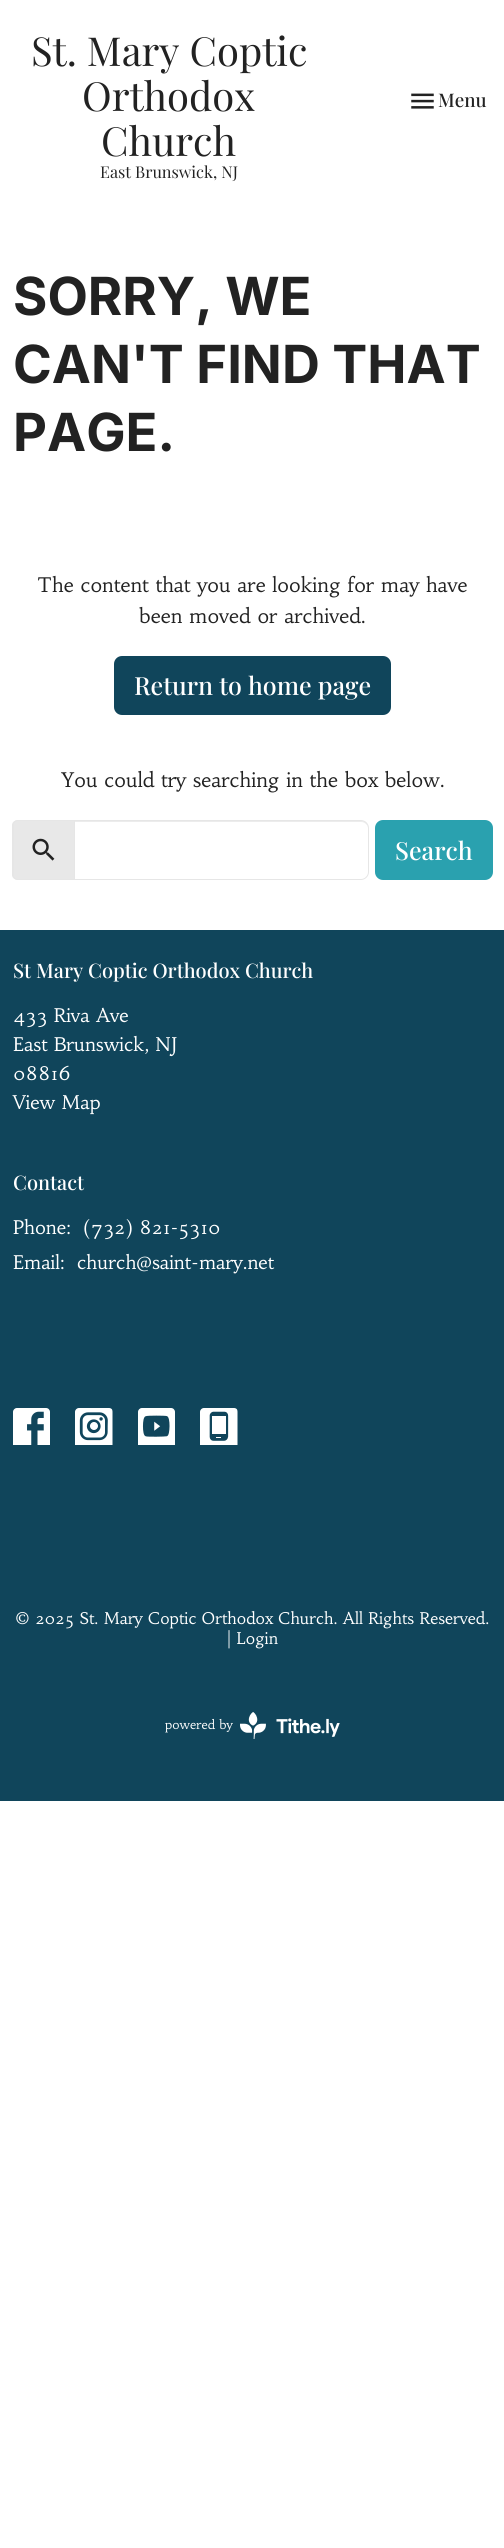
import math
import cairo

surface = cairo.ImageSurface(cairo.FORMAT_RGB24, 504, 2548)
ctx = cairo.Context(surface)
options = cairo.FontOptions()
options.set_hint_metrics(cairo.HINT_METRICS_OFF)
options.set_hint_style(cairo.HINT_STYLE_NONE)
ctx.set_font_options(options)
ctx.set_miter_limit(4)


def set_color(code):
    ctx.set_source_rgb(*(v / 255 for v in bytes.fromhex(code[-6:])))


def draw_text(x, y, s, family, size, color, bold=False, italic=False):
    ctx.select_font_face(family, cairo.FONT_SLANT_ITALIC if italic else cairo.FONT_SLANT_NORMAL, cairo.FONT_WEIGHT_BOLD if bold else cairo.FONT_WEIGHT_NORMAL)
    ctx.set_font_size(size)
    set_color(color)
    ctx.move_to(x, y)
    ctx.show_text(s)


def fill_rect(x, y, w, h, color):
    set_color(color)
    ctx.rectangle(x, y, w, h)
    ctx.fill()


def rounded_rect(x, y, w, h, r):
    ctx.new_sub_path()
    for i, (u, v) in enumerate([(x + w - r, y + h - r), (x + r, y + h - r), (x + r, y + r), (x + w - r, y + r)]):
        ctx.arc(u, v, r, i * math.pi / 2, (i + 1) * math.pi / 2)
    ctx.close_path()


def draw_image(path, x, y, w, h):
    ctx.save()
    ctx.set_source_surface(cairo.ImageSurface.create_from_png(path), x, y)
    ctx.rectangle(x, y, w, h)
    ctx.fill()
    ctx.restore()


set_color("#ffffff")
ctx.paint()
draw_text(31, 66, "St. Mary Coptic", "Playfair Display", 40, "#222222")
draw_text(82, 111, "Orthodox", "Playfair Display", 40, "#222222")
draw_text(101, 156, "Church", "Playfair Display", 40, "#222222")
draw_text(100, 178, "East Brunswick, NJ", "Playfair Display", 16.25, "#222222")
draw_image("assets/img1.png", 411, 93, 23, 16)
draw_text(438, 107, "Menu", "Playfair Display Medium", 18.75, "#222222")
draw_text(13, 315, "SORRY, WE", "Inter", 52.5, "#222222", bold=True)
draw_text(13, 383, "CAN'T FIND THAT", "Inter", 52.5, "#222222", bold=True)
draw_text(13, 451, "PAGE.", "Inter", 52.5, "#222222", bold=True)
draw_text(37, 592, "The content that you are looking for may have", "Habibi", 20, "#222222")
draw_text(139, 623, "been moved or archived.", "Habibi", 20, "#222222")
set_color("#10455b")
rounded_rect(114, 656, 277, 59, 8)
ctx.fill()
draw_text(134, 695, "Return to home page", "Playfair Display Medium", 25, "#ffffff")
draw_text(61, 787, "You could try searching in the box below.", "Habibi", 20, "#222222")
set_color("#e8e8e8")
ctx.new_path()
ctx.move_to(18, 820)
ctx.line_to(74, 820)
ctx.line_to(74, 880)
ctx.line_to(18, 880)
ctx.curve_to(15, 880, 13, 878, 13, 875)
ctx.line_to(13, 825)
ctx.curve_to(13, 822, 15, 820, 18, 820)
ctx.close_path()
ctx.fill()
set_color("#e6e6e6")
ctx.set_fill_rule(cairo.FILL_RULE_EVEN_ODD)
ctx.new_path()
ctx.move_to(18, 820)
ctx.line_to(74, 820)
ctx.line_to(74, 880)
ctx.line_to(18, 880)
ctx.curve_to(15, 880, 12, 878, 12, 875)
ctx.line_to(12, 825)
ctx.curve_to(12, 822, 15, 820, 18, 820)
ctx.close_path()
ctx.move_to(18, 821)
ctx.line_to(74, 821)
ctx.line_to(74, 879)
ctx.line_to(18, 879)
ctx.curve_to(15, 879, 14, 877, 14, 875)
ctx.line_to(14, 825)
ctx.curve_to(14, 823, 15, 821, 18, 821)
ctx.close_path()
ctx.fill()
draw_image("assets/img2.png", 32, 838, 23, 23)
set_color("#ececec")
ctx.set_fill_rule(cairo.FILL_RULE_WINDING)
ctx.new_path()
ctx.move_to(75, 822)
ctx.line_to(361, 822)
ctx.curve_to(365, 822, 368, 825, 368, 829)
ctx.curve_to(368, 825, 367, 821, 362, 821)
ctx.line_to(75, 821)
ctx.close_path()
ctx.fill()
ctx.new_path()
ctx.move_to(74.5, 820.5)
ctx.line_to(361, 820.5)
ctx.curve_to(365, 820.5, 368.5, 824, 368.5, 828)
ctx.line_to(368.5, 872)
ctx.curve_to(368.5, 876, 365, 879.5, 361, 879.5)
ctx.line_to(74.5, 879.5)
ctx.close_path()
set_color("#e6e6e6")
ctx.set_line_width(1)
ctx.stroke()
set_color("#2aa1af")
rounded_rect(375, 820, 118, 60, 8)
ctx.fill()
draw_text(395, 860, "Search", "Playfair Display Medium", 25, "#ffffff")
fill_rect(0, 930, 504, 871, "#10455b")
draw_text(13, 978, "St Mary Coptic Orthodox Church", "Playfair Display Medium", 20, "#ffffff")
draw_text(13, 1022, "433 Riva Ave", "Habibi", 18.75, "#ffffff")
draw_text(13, 1051, "East Brunswick, NJ", "Habibi", 18.75, "#ffffff")
draw_text(13, 1080, "08816", "Habibi", 18.75, "#ffffff")
draw_text(13, 1109, "View Map", "Habibi", 18.75, "#ffffff")
draw_text(13, 1190, "Contact", "Playfair Display Medium", 20, "#ffffff")
draw_text(13, 1234, "Phone:", "Habibi", 18.75, "#ffffff")
draw_text(83, 1234, "(732) 821-5310", "Habibi", 18.75, "#ffffff")
draw_text(13, 1269, "Email:", "Habibi", 18.75, "#ffffff")
draw_text(77, 1269, "church@saint-mary.net", "Habibi", 18.75, "#ffffff")
draw_image("assets/img3.png", 13, 1408, 37, 37)
draw_image("assets/img4.png", 75, 1408, 38, 37)
draw_image("assets/img5.png", 138, 1408, 37, 37)
draw_image("assets/img6.png", 200, 1408, 38, 37)
draw_text(15, 1624, "© 2025 St. Mary Coptic Orthodox Church. All Rights Reserved.", "Habibi", 16.1, "#ffffff")
draw_text(227, 1644, "| Login", "Habibi", 16.1, "#ffffff")
draw_text(165, 1729, "powered by", "Habibi", 12.5, "#ffffff")
draw_image("assets/img7.png", 240, 1712, 100, 27)
surface.write_to_png("output.png")
